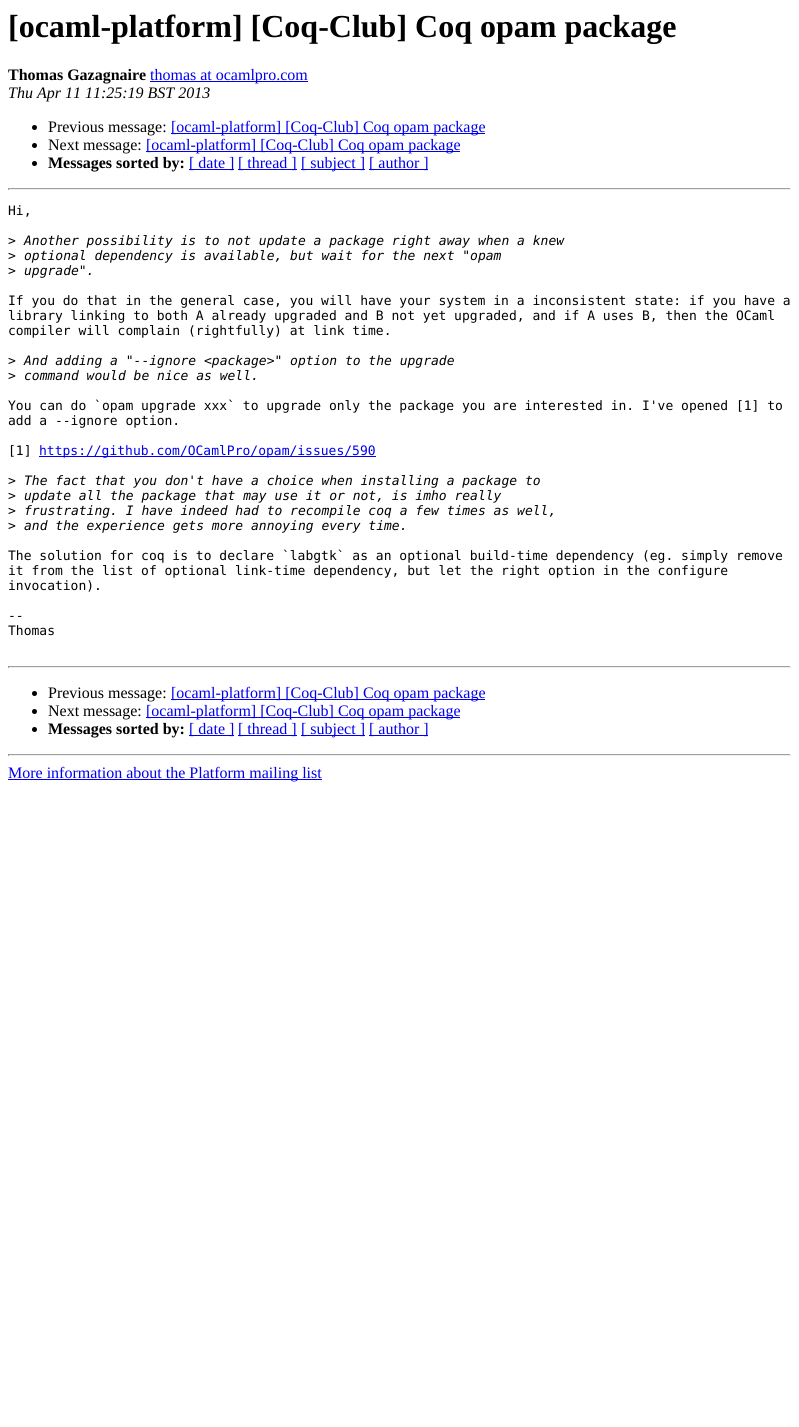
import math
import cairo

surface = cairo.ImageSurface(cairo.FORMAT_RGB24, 799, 1427)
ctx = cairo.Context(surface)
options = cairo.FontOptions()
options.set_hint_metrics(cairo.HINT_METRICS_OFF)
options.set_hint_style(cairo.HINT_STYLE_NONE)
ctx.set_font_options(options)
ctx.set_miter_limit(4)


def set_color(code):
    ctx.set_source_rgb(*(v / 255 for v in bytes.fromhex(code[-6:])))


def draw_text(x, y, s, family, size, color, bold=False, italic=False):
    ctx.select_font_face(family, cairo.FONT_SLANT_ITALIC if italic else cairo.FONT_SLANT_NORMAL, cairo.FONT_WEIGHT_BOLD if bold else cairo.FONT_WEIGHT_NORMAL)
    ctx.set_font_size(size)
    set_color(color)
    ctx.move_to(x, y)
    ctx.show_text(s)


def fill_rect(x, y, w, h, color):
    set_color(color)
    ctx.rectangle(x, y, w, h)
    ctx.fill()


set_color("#ffffff")
ctx.paint()
draw_text(8, 37, "[ocaml-platform] [Coq-Club] Coq opam package", "Liberation Serif", 32, "#000000", bold=True)
draw_text(8, 80, "Thomas Gazagnaire", "Liberation Serif", 16, "#000000", bold=True)
fill_rect(150, 81, 158, 1, "#0000ee")
draw_text(150, 80, "thomas at ocamlpro.com", "Liberation Serif", 16, "#0000ee")
draw_text(8, 98, "Thu Apr 11 11:25:19 BST 2013", "Liberation Serif", 16, "#000000", italic=True)
ctx.new_path()
ctx.arc(34.5, 127.5, 2.5, 0, 2 * math.pi)
ctx.fill()
draw_text(48, 132, "Previous message:", "Liberation Serif", 16, "#000000")
fill_rect(171, 133, 314, 1, "#0000ee")
draw_text(171, 132, "[ocaml-platform] [Coq-Club] Coq opam package", "Liberation Serif", 16, "#0000ee")
set_color("#000000")
ctx.new_path()
ctx.arc(34.5, 145.5, 2.5, 0, 2 * math.pi)
ctx.fill()
draw_text(48, 150, "Next message:", "Liberation Serif", 16, "#000000")
fill_rect(146, 151, 314, 1, "#0000ee")
draw_text(146, 150, "[ocaml-platform] [Coq-Club] Coq opam package", "Liberation Serif", 16, "#0000ee")
set_color("#000000")
ctx.new_path()
ctx.arc(34.5, 163.5, 2.5, 0, 2 * math.pi)
ctx.fill()
draw_text(48, 168, "Messages sorted by:", "Liberation Serif", 16, "#000000", bold=True)
fill_rect(189, 169, 45, 1, "#0000ee")
draw_text(189, 168, "[ date ]", "Liberation Serif", 16, "#0000ee")
fill_rect(238, 169, 59, 1, "#0000ee")
draw_text(238, 168, "[ thread ]", "Liberation Serif", 16, "#0000ee")
fill_rect(301, 169, 64, 1, "#0000ee")
draw_text(301, 168, "[ subject ]", "Liberation Serif", 16, "#0000ee")
fill_rect(369, 169, 59, 1, "#0000ee")
draw_text(369, 168, "[ author ]", "Liberation Serif", 16, "#0000ee")
fill_rect(8, 188, 783, 1, "#9f9f9f")
fill_rect(790, 188, 1, 2, "#eeeeee")
fill_rect(8, 189, 783, 1, "#eeeeee")
fill_rect(8, 188, 1, 2, "#9f9f9f")
draw_text(8, 215, "Hi,", "DejaVu Sans Mono", 13, "#000000")
draw_text(8, 245, ">", "DejaVu Sans Mono", 13, "#000000")
draw_text(24, 245, "Another possibility is to not update a package right away when a knew", "DejaVu Sans Mono", 13, "#000000", italic=True)
draw_text(8, 260, ">", "DejaVu Sans Mono", 13, "#000000")
draw_text(24, 260, "optional dependency is available, but wait for the next \"opam", "DejaVu Sans Mono", 13, "#000000", italic=True)
draw_text(8, 275, ">", "DejaVu Sans Mono", 13, "#000000")
draw_text(24, 275, "upgrade\".", "DejaVu Sans Mono", 13, "#000000", italic=True)
draw_text(8, 305, "If you do that in the general case, you will have your system in a inconsistent state: if you have a", "DejaVu Sans Mono", 13, "#000000")
draw_text(8, 320, "library linking to both A already upgraded and B not yet upgraded, and if A uses B, then the OCaml", "DejaVu Sans Mono", 13, "#000000")
draw_text(8, 335, "compiler will complain (rightfully) at link time.", "DejaVu Sans Mono", 13, "#000000")
draw_text(8, 365, ">", "DejaVu Sans Mono", 13, "#000000")
draw_text(24, 365, "And adding a \"--ignore <package>\" option to the upgrade", "DejaVu Sans Mono", 13, "#000000", italic=True)
draw_text(8, 380, ">", "DejaVu Sans Mono", 13, "#000000")
draw_text(24, 380, "command would be nice as well.", "DejaVu Sans Mono", 13, "#000000", italic=True)
draw_text(8, 410, "You can do `opam upgrade xxx` to upgrade only the package you are interested in. I've opened [1] to", "DejaVu Sans Mono", 13, "#000000")
draw_text(8, 425, "add a --ignore option.", "DejaVu Sans Mono", 13, "#000000")
draw_text(8, 455, "[1]", "DejaVu Sans Mono", 13, "#000000")
fill_rect(39, 456, 337, 1, "#0000ee")
draw_text(39, 455, "https://github.com/OCamlPro/opam/issues/590", "DejaVu Sans Mono", 13, "#0000ee")
draw_text(8, 485, ">", "DejaVu Sans Mono", 13, "#000000")
draw_text(24, 485, "The fact that you don't have a choice when installing a package to", "DejaVu Sans Mono", 13, "#000000", italic=True)
draw_text(8, 500, ">", "DejaVu Sans Mono", 13, "#000000")
draw_text(24, 500, "update all the package that may use it or not, is imho really", "DejaVu Sans Mono", 13, "#000000", italic=True)
draw_text(8, 515, ">", "DejaVu Sans Mono", 13, "#000000")
draw_text(24, 515, "frustrating. I have indeed had to recompile coq a few times as well,", "DejaVu Sans Mono", 13, "#000000", italic=True)
draw_text(8, 530, ">", "DejaVu Sans Mono", 13, "#000000")
draw_text(24, 530, "and the experience gets more annoying every time.", "DejaVu Sans Mono", 13, "#000000", italic=True)
draw_text(8, 560, "The solution for coq is to declare `labgtk` as an optional build-time dependency (eg. simply remove", "DejaVu Sans Mono", 13, "#000000")
draw_text(8, 575, "it from the list of optional link-time dependency, but let the right option in the configure", "DejaVu Sans Mono", 13, "#000000")
draw_text(8, 590, "invocation).", "DejaVu Sans Mono", 13, "#000000")
draw_text(8, 620, "--", "DejaVu Sans Mono", 13, "#000000")
draw_text(8, 635, "Thomas", "DejaVu Sans Mono", 13, "#000000")
fill_rect(8, 666, 783, 1, "#9f9f9f")
fill_rect(790, 666, 1, 2, "#eeeeee")
fill_rect(8, 667, 783, 1, "#eeeeee")
fill_rect(8, 666, 1, 2, "#9f9f9f")
set_color("#000000")
ctx.new_path()
ctx.arc(34.5, 693.5, 2.5, 0, 2 * math.pi)
ctx.fill()
draw_text(48, 698, "Previous message:", "Liberation Serif", 16, "#000000")
fill_rect(171, 699, 314, 1, "#0000ee")
draw_text(171, 698, "[ocaml-platform] [Coq-Club] Coq opam package", "Liberation Serif", 16, "#0000ee")
set_color("#000000")
ctx.new_path()
ctx.arc(34.5, 711.5, 2.5, 0, 2 * math.pi)
ctx.fill()
draw_text(48, 716, "Next message:", "Liberation Serif", 16, "#000000")
fill_rect(146, 717, 314, 1, "#0000ee")
draw_text(146, 716, "[ocaml-platform] [Coq-Club] Coq opam package", "Liberation Serif", 16, "#0000ee")
set_color("#000000")
ctx.new_path()
ctx.arc(34.5, 729.5, 2.5, 0, 2 * math.pi)
ctx.fill()
draw_text(48, 734, "Messages sorted by:", "Liberation Serif", 16, "#000000", bold=True)
fill_rect(189, 735, 45, 1, "#0000ee")
draw_text(189, 734, "[ date ]", "Liberation Serif", 16, "#0000ee")
fill_rect(238, 735, 59, 1, "#0000ee")
draw_text(238, 734, "[ thread ]", "Liberation Serif", 16, "#0000ee")
fill_rect(301, 735, 64, 1, "#0000ee")
draw_text(301, 734, "[ subject ]", "Liberation Serif", 16, "#0000ee")
fill_rect(369, 735, 59, 1, "#0000ee")
draw_text(369, 734, "[ author ]", "Liberation Serif", 16, "#0000ee")
fill_rect(8, 754, 783, 1, "#9f9f9f")
fill_rect(790, 754, 1, 2, "#eeeeee")
fill_rect(8, 755, 783, 1, "#eeeeee")
fill_rect(8, 754, 1, 2, "#9f9f9f")
fill_rect(8, 779, 314, 1, "#0000ee")
draw_text(8, 778, "More information about the Platform mailing list", "Liberation Serif", 16, "#0000ee")
surface.write_to_png("output.png")
